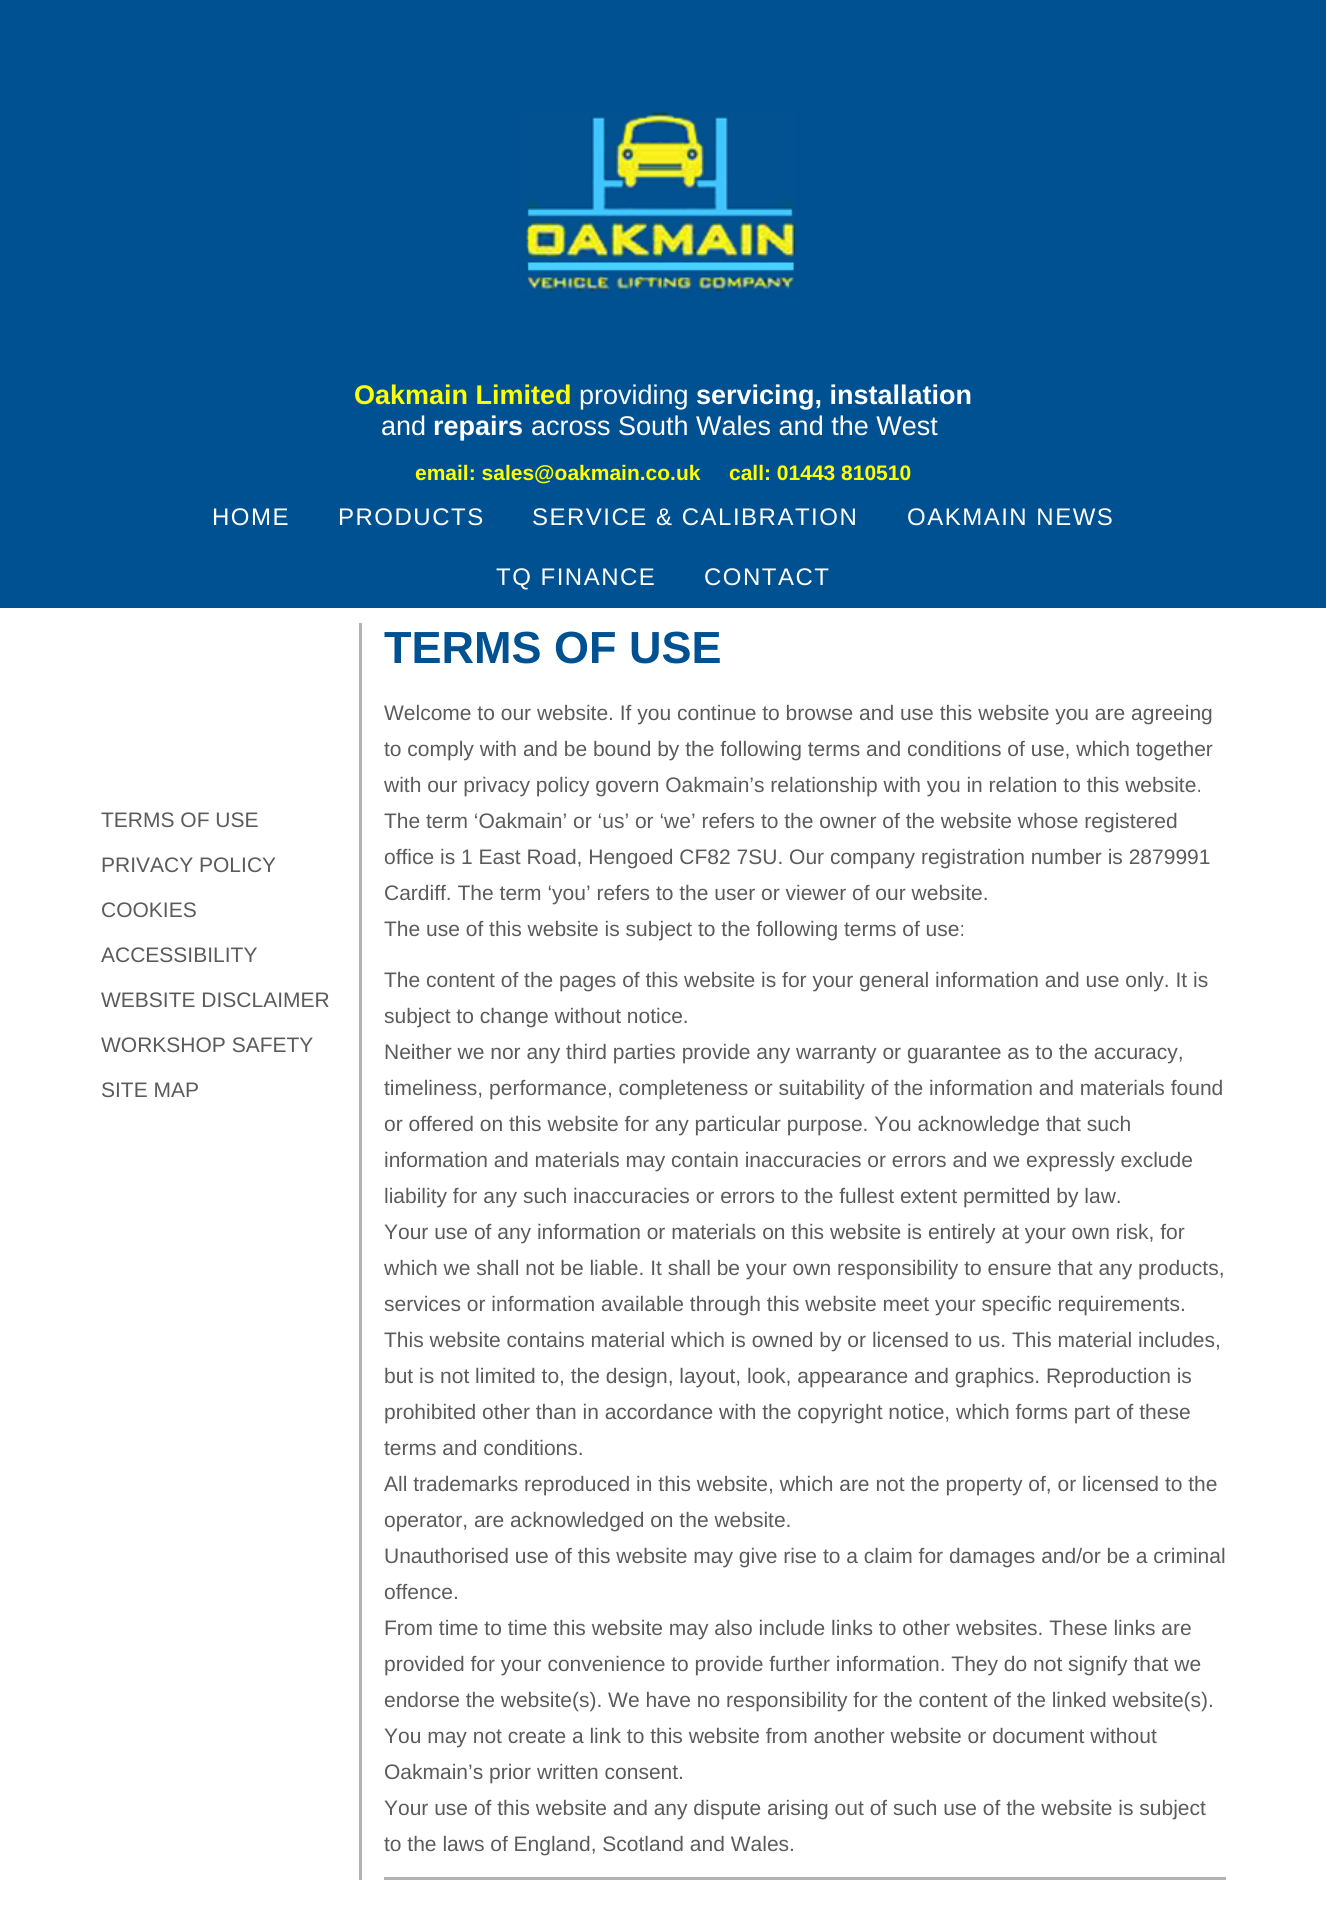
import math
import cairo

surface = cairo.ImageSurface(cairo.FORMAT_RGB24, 1326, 1909)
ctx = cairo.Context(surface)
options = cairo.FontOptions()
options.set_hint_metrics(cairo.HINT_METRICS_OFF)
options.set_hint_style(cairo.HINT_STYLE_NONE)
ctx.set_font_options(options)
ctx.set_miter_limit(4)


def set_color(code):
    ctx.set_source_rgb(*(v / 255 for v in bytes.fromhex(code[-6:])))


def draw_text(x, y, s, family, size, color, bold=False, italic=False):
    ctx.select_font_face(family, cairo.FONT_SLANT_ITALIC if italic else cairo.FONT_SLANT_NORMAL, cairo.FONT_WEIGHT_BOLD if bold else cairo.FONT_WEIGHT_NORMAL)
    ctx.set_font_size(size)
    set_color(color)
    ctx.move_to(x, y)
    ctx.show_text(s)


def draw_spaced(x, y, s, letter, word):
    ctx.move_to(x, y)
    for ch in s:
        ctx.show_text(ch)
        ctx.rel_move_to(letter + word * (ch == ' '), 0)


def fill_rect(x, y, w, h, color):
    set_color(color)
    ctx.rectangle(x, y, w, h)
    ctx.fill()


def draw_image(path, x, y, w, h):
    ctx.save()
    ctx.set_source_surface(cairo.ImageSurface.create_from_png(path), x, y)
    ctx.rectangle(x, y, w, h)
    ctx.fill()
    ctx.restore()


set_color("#ffffff")
ctx.paint()
fill_rect(0, 0, 1326, 608, "#005191")
draw_image("assets/img1.png", 519, 112, 277, 180)
draw_text(354, 404, "Oakmain Limited", "Liberation Sans", 27, "#ffff00", bold=True)
draw_text(579, 404, "providing", "Liberation Sans", 27, "#ffffff")
draw_text(696, 404, "servicing, installation", "Liberation Sans", 27, "#ffffff", bold=True)
draw_text(381, 435, "and", "Liberation Sans", 27, "#ffffff")
draw_text(433, 435, "repairs", "Liberation Sans", 27, "#ffffff", bold=True)
draw_text(531, 435, "across South Wales and the West", "Liberation Sans", 27, "#ffffff")
draw_text(415, 480, "email: sales@oakmain.co.uk", "Liberation Sans", 21, "#ffff00", bold=True)
draw_text(729, 480, "call: 01443 810510", "Liberation Sans", 21, "#ffff00", bold=True)
ctx.select_font_face("Liberation Sans")
ctx.set_font_size(24)
set_color("#ffffff")
draw_spaced(212, 525, "HOME", 1.5, 0)
draw_spaced(338, 525, "PRODUCTS", 1.5, 0)
draw_spaced(532, 525, "SERVICE & CALIBRATION", 1.5, 0)
draw_spaced(907, 525, "OAKMAIN NEWS", 1.5, 0)
draw_spaced(496, 585, "TQ FINANCE", 1.5, 0)
draw_spaced(704, 585, "CONTACT", 1.5, 0)
draw_text(101, 827, "TERMS OF USE", "Liberation Sans", 21, "#5b5b5b")
draw_text(101, 872, "PRIVACY POLICY", "Liberation Sans", 21, "#5b5b5b")
draw_text(101, 917, "COOKIES", "Liberation Sans", 21, "#5b5b5b")
draw_text(101, 962, "ACCESSIBILITY", "Liberation Sans", 21, "#5b5b5b")
draw_text(101, 1007, "WEBSITE DISCLAIMER", "Liberation Sans", 21, "#5b5b5b")
draw_text(101, 1052, "WORKSHOP SAFETY", "Liberation Sans", 21, "#5b5b5b")
draw_text(101, 1097, "SITE MAP", "Liberation Sans", 21, "#5b5b5b")
fill_rect(359, 623, 3, 1257, "#b3b3b3")
fill_rect(384, 1877, 842, 3, "#b3b3b3")
draw_text(384, 663, "TERMS OF USE", "Liberation Sans", 45, "#005191", bold=True)
draw_text(384, 720, "Welcome to our website. If you continue to browse and use this website you are agreeing", "Liberation Sans", 21, "#5b5b5b")
draw_text(384, 756, "to comply with and be bound by the following terms and conditions of use, which together", "Liberation Sans", 21, "#5b5b5b")
draw_text(384, 792, "with our privacy policy govern Oakmain’s relationship with you in relation to this website.", "Liberation Sans", 21, "#5b5b5b")
draw_text(384, 828, "The term ‘Oakmain’ or ‘us’ or ‘we’ refers to the owner of the website whose registered", "Liberation Sans", 21, "#5b5b5b")
draw_text(384, 864, "office is 1 East Road, Hengoed CF82 7SU. Our company registration number is 2879991", "Liberation Sans", 21, "#5b5b5b")
draw_text(384, 900, "Cardiff. The term ‘you’ refers to the user or viewer of our website.", "Liberation Sans", 21, "#5b5b5b")
draw_text(384, 936, "The use of this website is subject to the following terms of use:", "Liberation Sans", 21, "#5b5b5b")
draw_text(384, 987, "The content of the pages of this website is for your general information and use only. It is", "Liberation Sans", 21, "#5b5b5b")
draw_text(384, 1023, "subject to change without notice.", "Liberation Sans", 21, "#5b5b5b")
draw_text(384, 1059, "Neither we nor any third parties provide any warranty or guarantee as to the accuracy,", "Liberation Sans", 21, "#5b5b5b")
draw_text(384, 1095, "timeliness, performance, completeness or suitability of the information and materials found", "Liberation Sans", 21, "#5b5b5b")
draw_text(384, 1131, "or offered on this website for any particular purpose. You acknowledge that such", "Liberation Sans", 21, "#5b5b5b")
draw_text(384, 1167, "information and materials may contain inaccuracies or errors and we expressly exclude", "Liberation Sans", 21, "#5b5b5b")
draw_text(384, 1203, "liability for any such inaccuracies or errors to the fullest extent permitted by law.", "Liberation Sans", 21, "#5b5b5b")
draw_text(384, 1239, "Your use of any information or materials on this website is entirely at your own risk, for", "Liberation Sans", 21, "#5b5b5b")
draw_text(384, 1275, "which we shall not be liable. It shall be your own responsibility to ensure that any products,", "Liberation Sans", 21, "#5b5b5b")
draw_text(384, 1311, "services or information available through this website meet your specific requirements.", "Liberation Sans", 21, "#5b5b5b")
draw_text(384, 1347, "This website contains material which is owned by or licensed to us. This material includes,", "Liberation Sans", 21, "#5b5b5b")
draw_text(384, 1383, "but is not limited to, the design, layout, look, appearance and graphics. Reproduction is", "Liberation Sans", 21, "#5b5b5b")
draw_text(384, 1419, "prohibited other than in accordance with the copyright notice, which forms part of these", "Liberation Sans", 21, "#5b5b5b")
draw_text(384, 1455, "terms and conditions.", "Liberation Sans", 21, "#5b5b5b")
draw_text(384, 1491, "All trademarks reproduced in this website, which are not the property of, or licensed to the", "Liberation Sans", 21, "#5b5b5b")
draw_text(384, 1527, "operator, are acknowledged on the website.", "Liberation Sans", 21, "#5b5b5b")
draw_text(384, 1563, "Unauthorised use of this website may give rise to a claim for damages and/or be a criminal", "Liberation Sans", 21, "#5b5b5b")
draw_text(384, 1599, "offence.", "Liberation Sans", 21, "#5b5b5b")
draw_text(384, 1635, "From time to time this website may also include links to other websites. These links are", "Liberation Sans", 21, "#5b5b5b")
draw_text(384, 1671, "provided for your convenience to provide further information. They do not signify that we", "Liberation Sans", 21, "#5b5b5b")
draw_text(384, 1707, "endorse the website(s). We have no responsibility for the content of the linked website(s).", "Liberation Sans", 21, "#5b5b5b")
draw_text(384, 1743, "You may not create a link to this website from another website or document without", "Liberation Sans", 21, "#5b5b5b")
draw_text(384, 1779, "Oakmain’s prior written consent.", "Liberation Sans", 21, "#5b5b5b")
draw_text(384, 1815, "Your use of this website and any dispute arising out of such use of the website is subject", "Liberation Sans", 21, "#5b5b5b")
draw_text(384, 1851, "to the laws of England, Scotland and Wales.", "Liberation Sans", 21, "#5b5b5b")
surface.write_to_png("output.png")
